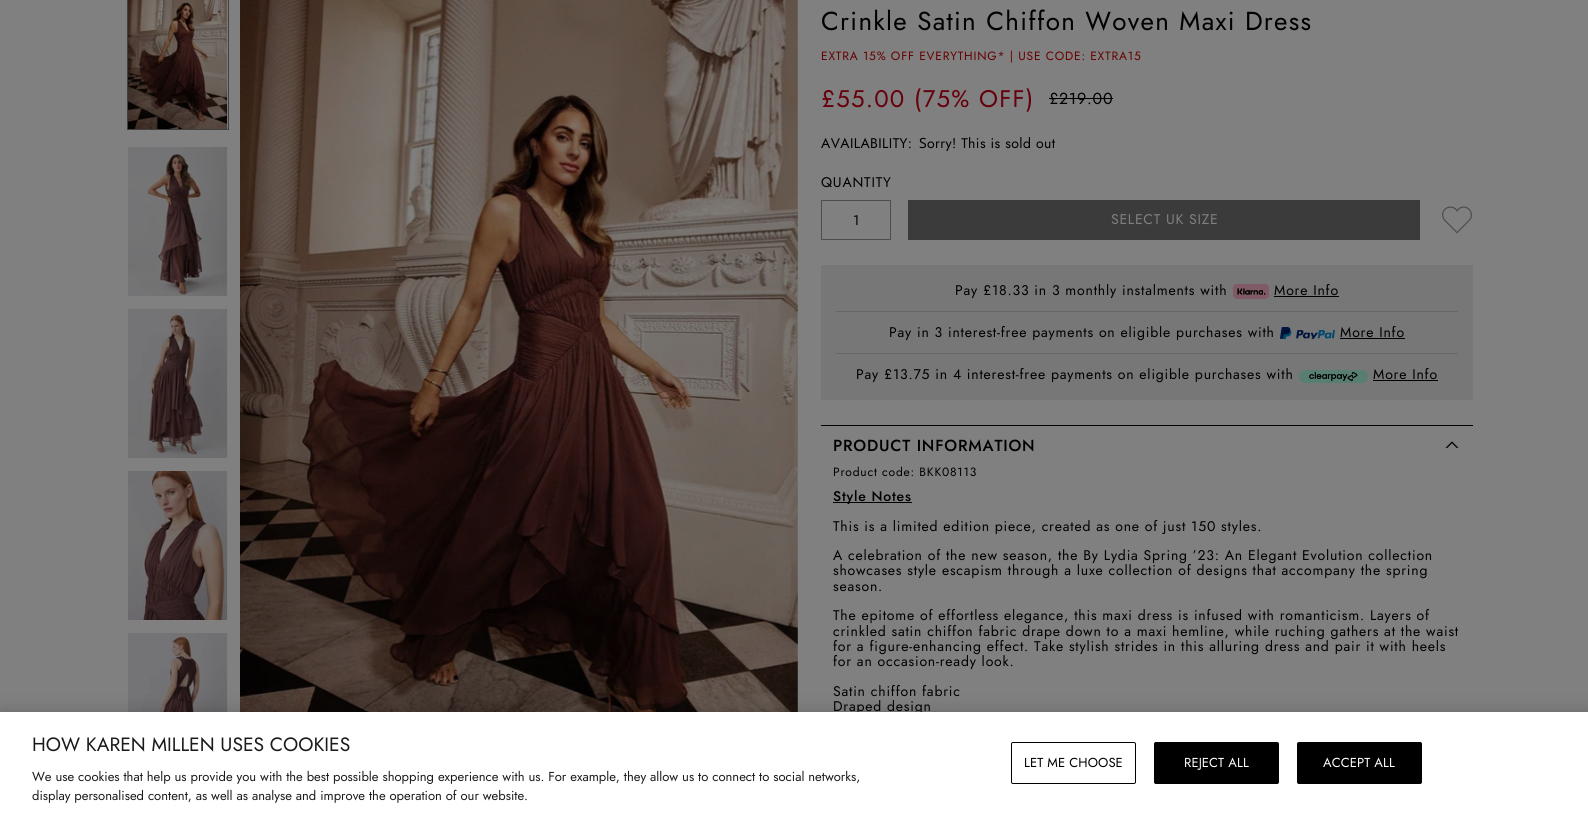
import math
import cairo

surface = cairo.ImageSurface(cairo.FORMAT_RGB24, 1588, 816)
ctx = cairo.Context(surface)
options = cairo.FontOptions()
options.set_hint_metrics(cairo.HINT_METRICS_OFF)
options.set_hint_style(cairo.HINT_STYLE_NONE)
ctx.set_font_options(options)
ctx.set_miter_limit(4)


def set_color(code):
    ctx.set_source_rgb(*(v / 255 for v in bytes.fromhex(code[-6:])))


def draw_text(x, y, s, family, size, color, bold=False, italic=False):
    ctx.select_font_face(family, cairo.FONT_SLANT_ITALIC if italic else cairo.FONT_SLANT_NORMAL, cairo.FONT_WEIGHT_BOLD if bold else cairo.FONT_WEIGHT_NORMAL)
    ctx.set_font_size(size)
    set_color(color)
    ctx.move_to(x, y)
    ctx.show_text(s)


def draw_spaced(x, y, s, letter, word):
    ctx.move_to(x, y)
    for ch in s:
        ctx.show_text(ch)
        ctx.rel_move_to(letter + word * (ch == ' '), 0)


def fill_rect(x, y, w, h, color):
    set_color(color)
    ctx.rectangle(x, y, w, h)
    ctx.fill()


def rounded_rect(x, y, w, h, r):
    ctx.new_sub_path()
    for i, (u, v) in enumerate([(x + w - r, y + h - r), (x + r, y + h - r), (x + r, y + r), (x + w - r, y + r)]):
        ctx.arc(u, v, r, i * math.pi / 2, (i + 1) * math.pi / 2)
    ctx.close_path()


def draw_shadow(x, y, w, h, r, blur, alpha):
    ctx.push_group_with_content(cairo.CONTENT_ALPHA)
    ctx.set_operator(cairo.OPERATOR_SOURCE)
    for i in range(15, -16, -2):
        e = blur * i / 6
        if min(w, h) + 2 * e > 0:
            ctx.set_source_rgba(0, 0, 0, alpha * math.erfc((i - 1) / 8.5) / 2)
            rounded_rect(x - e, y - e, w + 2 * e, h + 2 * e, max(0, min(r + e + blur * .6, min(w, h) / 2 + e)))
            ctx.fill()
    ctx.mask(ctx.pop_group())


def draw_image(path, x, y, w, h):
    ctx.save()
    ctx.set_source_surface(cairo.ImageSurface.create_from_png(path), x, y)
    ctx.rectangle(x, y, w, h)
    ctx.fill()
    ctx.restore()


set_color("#808080")
ctx.paint()
ctx.rectangle(127.5, -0.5, 101, 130)
set_color("#404040")
ctx.set_line_width(1)
ctx.stroke()
draw_image("assets/img1.png", 128, 0, 100, 129)
draw_image("assets/img2.png", 128, 147, 100, 149)
draw_image("assets/img3.png", 128, 309, 100, 149)
draw_image("assets/img4.png", 128, 471, 100, 149)
draw_image("assets/img5.png", 128, 633, 100, 79)
draw_image("assets/img6.png", 240, 0, 558, 712)
ctx.select_font_face("Jost")
ctx.set_font_size(26)
set_color("#000000")
draw_spaced(821, 30, "Crinkle Satin Chiffon Woven Maxi Dress", 1.3, 0)
ctx.set_font_size(12)
set_color("#660000")
draw_spaced(821, 60, "EXTRA 15% OFF EVERYTHING* | USE CODE: EXTRA15", 0.8, 0)
ctx.set_font_size(24)
set_color("#67000d")
draw_spaced(821, 107, "£55.00 (75% OFF)", 1.25, 0)
ctx.set_font_size(16)
set_color("#000000")
draw_spaced(1049, 104, "£219.00", 0.8, 0)
fill_rect(1049, 98, 64, 1, "#000000")
ctx.set_font_size(14)
draw_spaced(821, 148, "AVAILABILITY:", 0.4, 0)
ctx.select_font_face("Noto Sans")
draw_spaced(919, 148, "S", 0.4, 0)
ctx.select_font_face("Jost")
draw_spaced(927, 148, "orry! This is sold out", 0.4, 0)
draw_spaced(821, 187, "QUANTITY", 0.8, 0)
ctx.rectangle(821.5, 200.5, 69, 39)
set_color("#4d4d4d")
ctx.stroke()
draw_text(853, 225, "1", "Jost", 14, "#000000")
fill_rect(908, 200, 512, 40, "#3b3b3b")
set_color("#808080")
draw_spaced(1111, 224, "SELECT UK SIZE", 0.75, 0)
draw_image("assets/img7.png", 1442, 206, 30, 28)
fill_rect(821, 265, 652, 135, "#787778")
fill_rect(836, 311, 622, 1, "#676767")
set_color("#000000")
draw_spaced(955, 295, "Pay £18.33 in 3 monthly instalments with", 0.8, 0)
draw_image("assets/img8.png", 1233, 284, 36, 15)
draw_spaced(1274, 295, "More Info", 0.8, 0)
fill_rect(1274, 296, 65, 1, "#000000")
fill_rect(836, 353, 622, 1, "#676767")
set_color("#000000")
draw_spaced(889, 337, "Pay in 3 interest-free payments on eligible purchases with", 0.8, 0)
draw_image("assets/img9.png", 1280, 327, 55, 12)
draw_spaced(1340, 337, "More Info", 0.8, 0)
fill_rect(1340, 338, 65, 1, "#000000")
draw_spaced(856, 379, "Pay £13.75 in 4 interest-free payments on eligible purchases with", 0.8, 0)
draw_image("assets/img10.png", 1299, 370, 69, 13)
draw_spaced(1373, 379, "More Info", 0.8, 0)
fill_rect(1373, 380, 65, 1, "#000000")
fill_rect(821, 425, 652, 1, "#000000")
ctx.select_font_face("Jost Medium")
ctx.set_font_size(16)
draw_spaced(833, 451, "PRODUCT INFORMATION", 0.8, 0)
draw_image("assets/img11.png", 1445, 441, 14, 7)
ctx.select_font_face("Jost")
ctx.set_font_size(12)
draw_spaced(833, 476, "Product code: BKK08113", 0.8, 0)
fill_rect(833, 502, 79, 1, "#000000")
ctx.select_font_face("Jost Medium")
ctx.set_font_size(14)
draw_spaced(833, 501, "Style Notes", 0.8, 0)
ctx.select_font_face("Jost")
draw_spaced(833, 531, "This is a limited edition piece, created as one of just 150 styles.", 0.8, 0)
draw_spaced(833, 560, "A celebration of the new season, the By Lydia Spring ’23: An Elegant Evolution collection", 0.8, 0)
draw_spaced(833, 575, "showcases style escapism through a luxe collection of designs that accompany the spring", 0.8, 0)
draw_spaced(833, 591, "season.", 0.8, 0)
draw_spaced(833, 620, "The epitome of effortless elegance, this maxi dress is infused with romanticism. Layers of", 0.8, 0)
draw_spaced(833, 636, "crinkled satin chiffon fabric drape down to a maxi hemline, while ruching gathers at the waist", 0.8, 0)
draw_spaced(833, 651, "for a figure-enhancing effect. Take stylish strides in this alluring dress and pair it with heels", 0.8, 0)
draw_spaced(833, 666, "for an occasion-ready look.", 0.8, 0)
draw_spaced(833, 696, "Satin chiffon fabric", 0.8, 0)
draw_spaced(833, 711, "Draped design", 0.8, 0)
set_color("#000000")
draw_shadow(0, 712, 1588, 104, 0, 9, 0.2)
fill_rect(0, 712, 1588, 104, "#ffffff")
draw_text(32, 751, "HOW KAREN MILLEN USES COOKIES", "Jost", 19.25, "#1b1b1b")
draw_text(32, 781, "We use cookies that help us provide you with the best possible shopping experience with us. For example, they allow us to connect to social networks,", "Jost", 13, "#1b1b1b")
draw_text(32, 800, "display personalised content, as well as analyse and improve the operation of our website.", "Jost", 13, "#1b1b1b")
rounded_rect(1011.5, 742.5, 124, 41, 1.5)
set_color("#000000")
ctx.stroke()
draw_spaced(1024, 767, "LET ME CHOOSE", 0.1, 0)
rounded_rect(1154.5, 742.5, 124, 41, 1.5)
ctx.fill_preserve()
ctx.stroke()
set_color("#ffffff")
draw_spaced(1184, 767, "REJECT ALL", 0.1, 0)
set_color("#000000")
rounded_rect(1297.5, 742.5, 124, 41, 1.5)
ctx.fill_preserve()
ctx.stroke()
set_color("#ffffff")
draw_spaced(1323, 767, "ACCEPT ALL", 0.1, 0)
surface.write_to_png("output.png")
